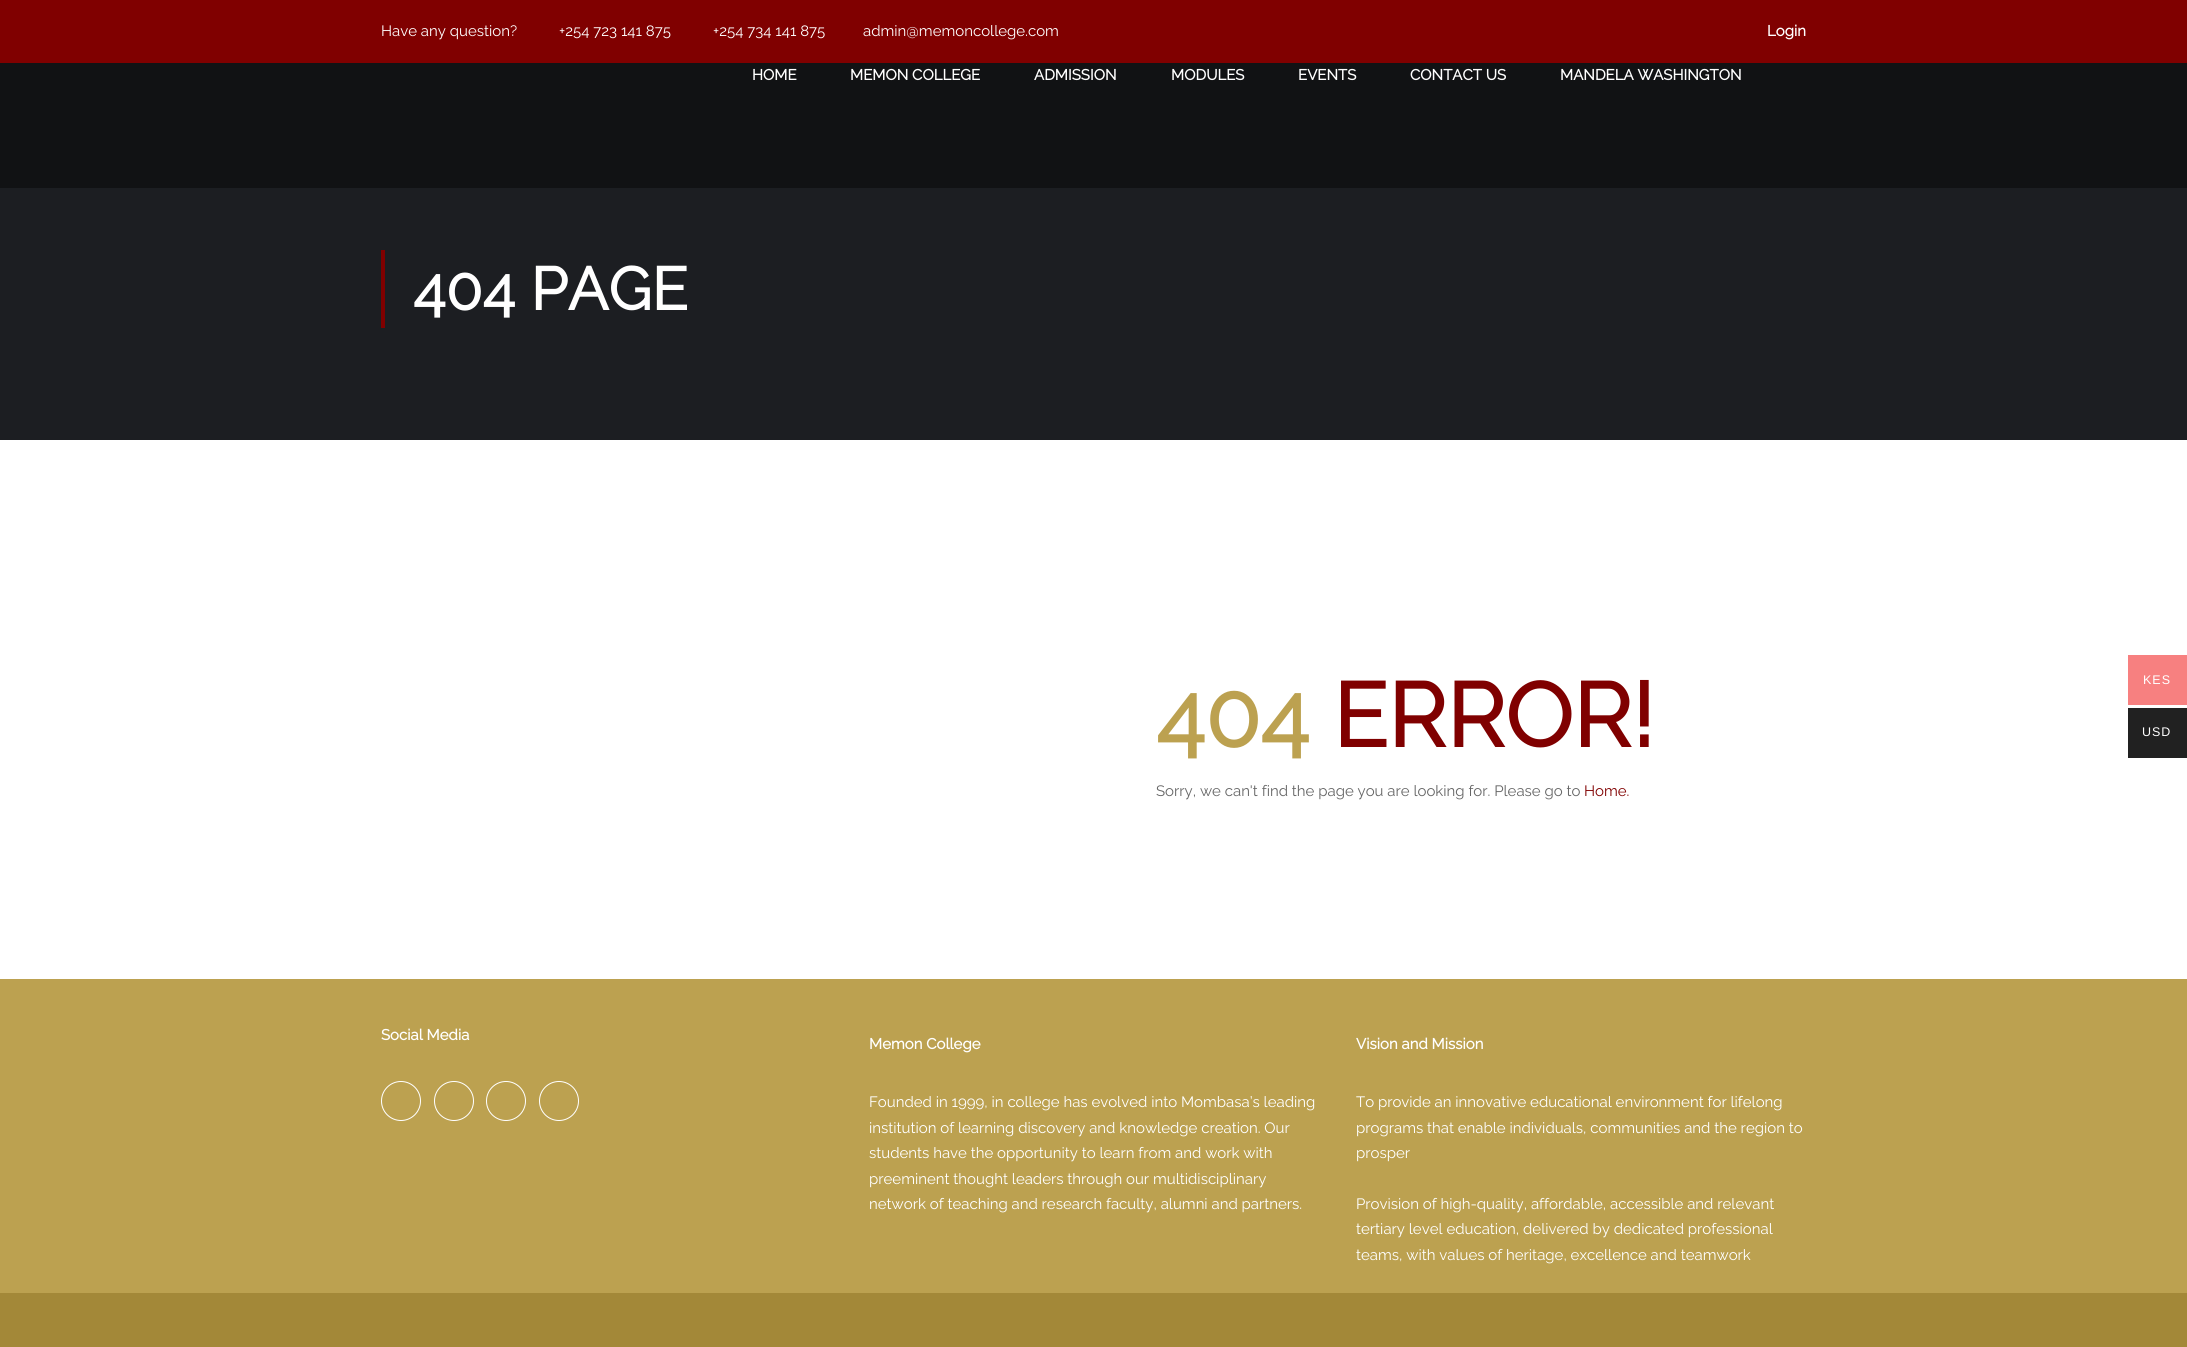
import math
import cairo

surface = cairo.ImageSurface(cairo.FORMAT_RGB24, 2187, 1347)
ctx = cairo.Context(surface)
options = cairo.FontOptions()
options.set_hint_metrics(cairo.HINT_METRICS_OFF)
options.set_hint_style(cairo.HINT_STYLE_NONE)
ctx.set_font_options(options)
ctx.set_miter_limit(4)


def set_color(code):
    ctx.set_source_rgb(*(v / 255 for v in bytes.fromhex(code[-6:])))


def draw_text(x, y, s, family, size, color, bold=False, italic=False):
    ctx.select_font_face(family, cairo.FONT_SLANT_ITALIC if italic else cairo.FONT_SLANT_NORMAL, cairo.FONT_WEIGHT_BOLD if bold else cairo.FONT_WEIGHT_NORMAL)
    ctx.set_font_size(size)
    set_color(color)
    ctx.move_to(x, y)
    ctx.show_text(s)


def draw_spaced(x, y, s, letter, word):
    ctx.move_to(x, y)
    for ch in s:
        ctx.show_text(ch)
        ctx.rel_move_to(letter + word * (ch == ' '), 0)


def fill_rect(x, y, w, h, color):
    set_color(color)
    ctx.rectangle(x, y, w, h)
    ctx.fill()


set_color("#ffffff")
ctx.paint()
fill_rect(0, 63, 2187, 125, "#111214")
fill_rect(0, 0, 2187, 63, "#800000")
draw_text(381, 36, "Have any question?", "Raleway Thin", 15, "#ffffff")
draw_text(559, 36, "+254 723 141 875", "Raleway Thin", 15, "#ffffff")
draw_text(713, 36, "+254 734 141 875", "Raleway Thin", 15, "#ffffff")
draw_text(863, 36, "admin@memoncollege.com", "Raleway Thin", 15, "#ffffff")
draw_text(1767, 36, "Login", "Raleway", 15, "#ffffff", bold=True)
draw_text(752, 80, "HOME", "Raleway", 15, "#ffffff", bold=True)
draw_text(850, 80, "MEMON COLLEGE", "Raleway", 15, "#ffffff", bold=True)
draw_text(1034, 80, "ADMISSION", "Raleway", 15, "#ffffff", bold=True)
draw_text(1171, 80, "MODULES", "Raleway", 15, "#ffffff", bold=True)
draw_text(1298, 80, "EVENTS", "Raleway", 15, "#ffffff", bold=True)
draw_text(1410, 80, "CONTACT US", "Raleway", 15, "#ffffff", bold=True)
draw_text(1560, 80, "MANDELA WASHINGTON", "Raleway", 15, "#ffffff", bold=True)
fill_rect(0, 188, 2187, 252, "#1c1e22")
fill_rect(381, 250, 4, 78, "#800000")
draw_text(413, 310, "404 PAGE", "Raleway", 60, "#ffffff", bold=True)
draw_text(1156, 747, "404", "Raleway", 90, "#bca150", bold=True)
draw_text(1333, 747, "ERROR!", "Raleway", 90, "#800000", bold=True)
draw_text(1156, 796, "Sorry, we can't find the page you are looking for. Please go to", "Raleway Thin", 15, "#666666")
draw_text(1584, 796, "Home.", "Raleway Thin", 15, "#800000")
fill_rect(0, 979, 2187, 314, "#bca150")
draw_text(381, 1040, "Social Media", "Raleway", 15, "#ffffff", bold=True)
ctx.new_path()
ctx.arc(401, 1101, 19.5, 0, 2 * math.pi)
ctx.set_line_width(1)
ctx.stroke()
ctx.arc(454, 1101, 19.5, 0, 2 * math.pi)
ctx.stroke()
ctx.arc(506, 1101, 19.5, 0, 2 * math.pi)
ctx.stroke()
ctx.arc(559, 1101, 19.5, 0, 2 * math.pi)
ctx.stroke()
draw_text(869, 1049, "Memon College", "Raleway", 15, "#ffffff", bold=True)
draw_text(869, 1107, "Founded in 1999, in college has evolved into Mombasa’s leading", "Raleway Thin", 15, "#ffffff")
draw_text(869, 1133, "institution of learning discovery and knowledge creation. Our", "Raleway Thin", 15, "#ffffff")
draw_text(869, 1158, "students have the opportunity to learn from and work with", "Raleway Thin", 15, "#ffffff")
draw_text(869, 1184, "preeminent thought leaders through our multidisciplinary", "Raleway Thin", 15, "#ffffff")
draw_text(869, 1209, "network of teaching and research faculty, alumni and partners.", "Raleway Thin", 15, "#ffffff")
draw_text(1356, 1049, "Vision and Mission", "Raleway", 15, "#ffffff", bold=True)
draw_text(1356, 1107, "To provide an innovative educational environment for lifelong", "Raleway Thin", 15, "#ffffff")
draw_text(1356, 1133, "programs that enable individuals, communities and the region to", "Raleway Thin", 15, "#ffffff")
draw_text(1356, 1158, "prosper", "Raleway Thin", 15, "#ffffff")
draw_text(1356, 1209, "Provision of high-quality, affordable, accessible and relevant", "Raleway Thin", 15, "#ffffff")
draw_text(1356, 1234, "tertiary level education, delivered by dedicated professional", "Raleway Thin", 15, "#ffffff")
draw_text(1356, 1260, "teams, with values of heritage, excellence and teamwork", "Raleway Thin", 15, "#ffffff")
fill_rect(0, 1293, 2187, 54, "#a38838")
fill_rect(2128, 655, 59, 50, "#f78080")
ctx.select_font_face("Liberation Sans")
ctx.set_font_size(12.5)
set_color("#ffffff")
draw_spaced(2143, 684, "KES", 1, 0)
fill_rect(2128, 708, 59, 50, "#212121")
set_color("#ffffff")
draw_spaced(2142, 736, "USD", 1, 0)
surface.write_to_png("output.png")
